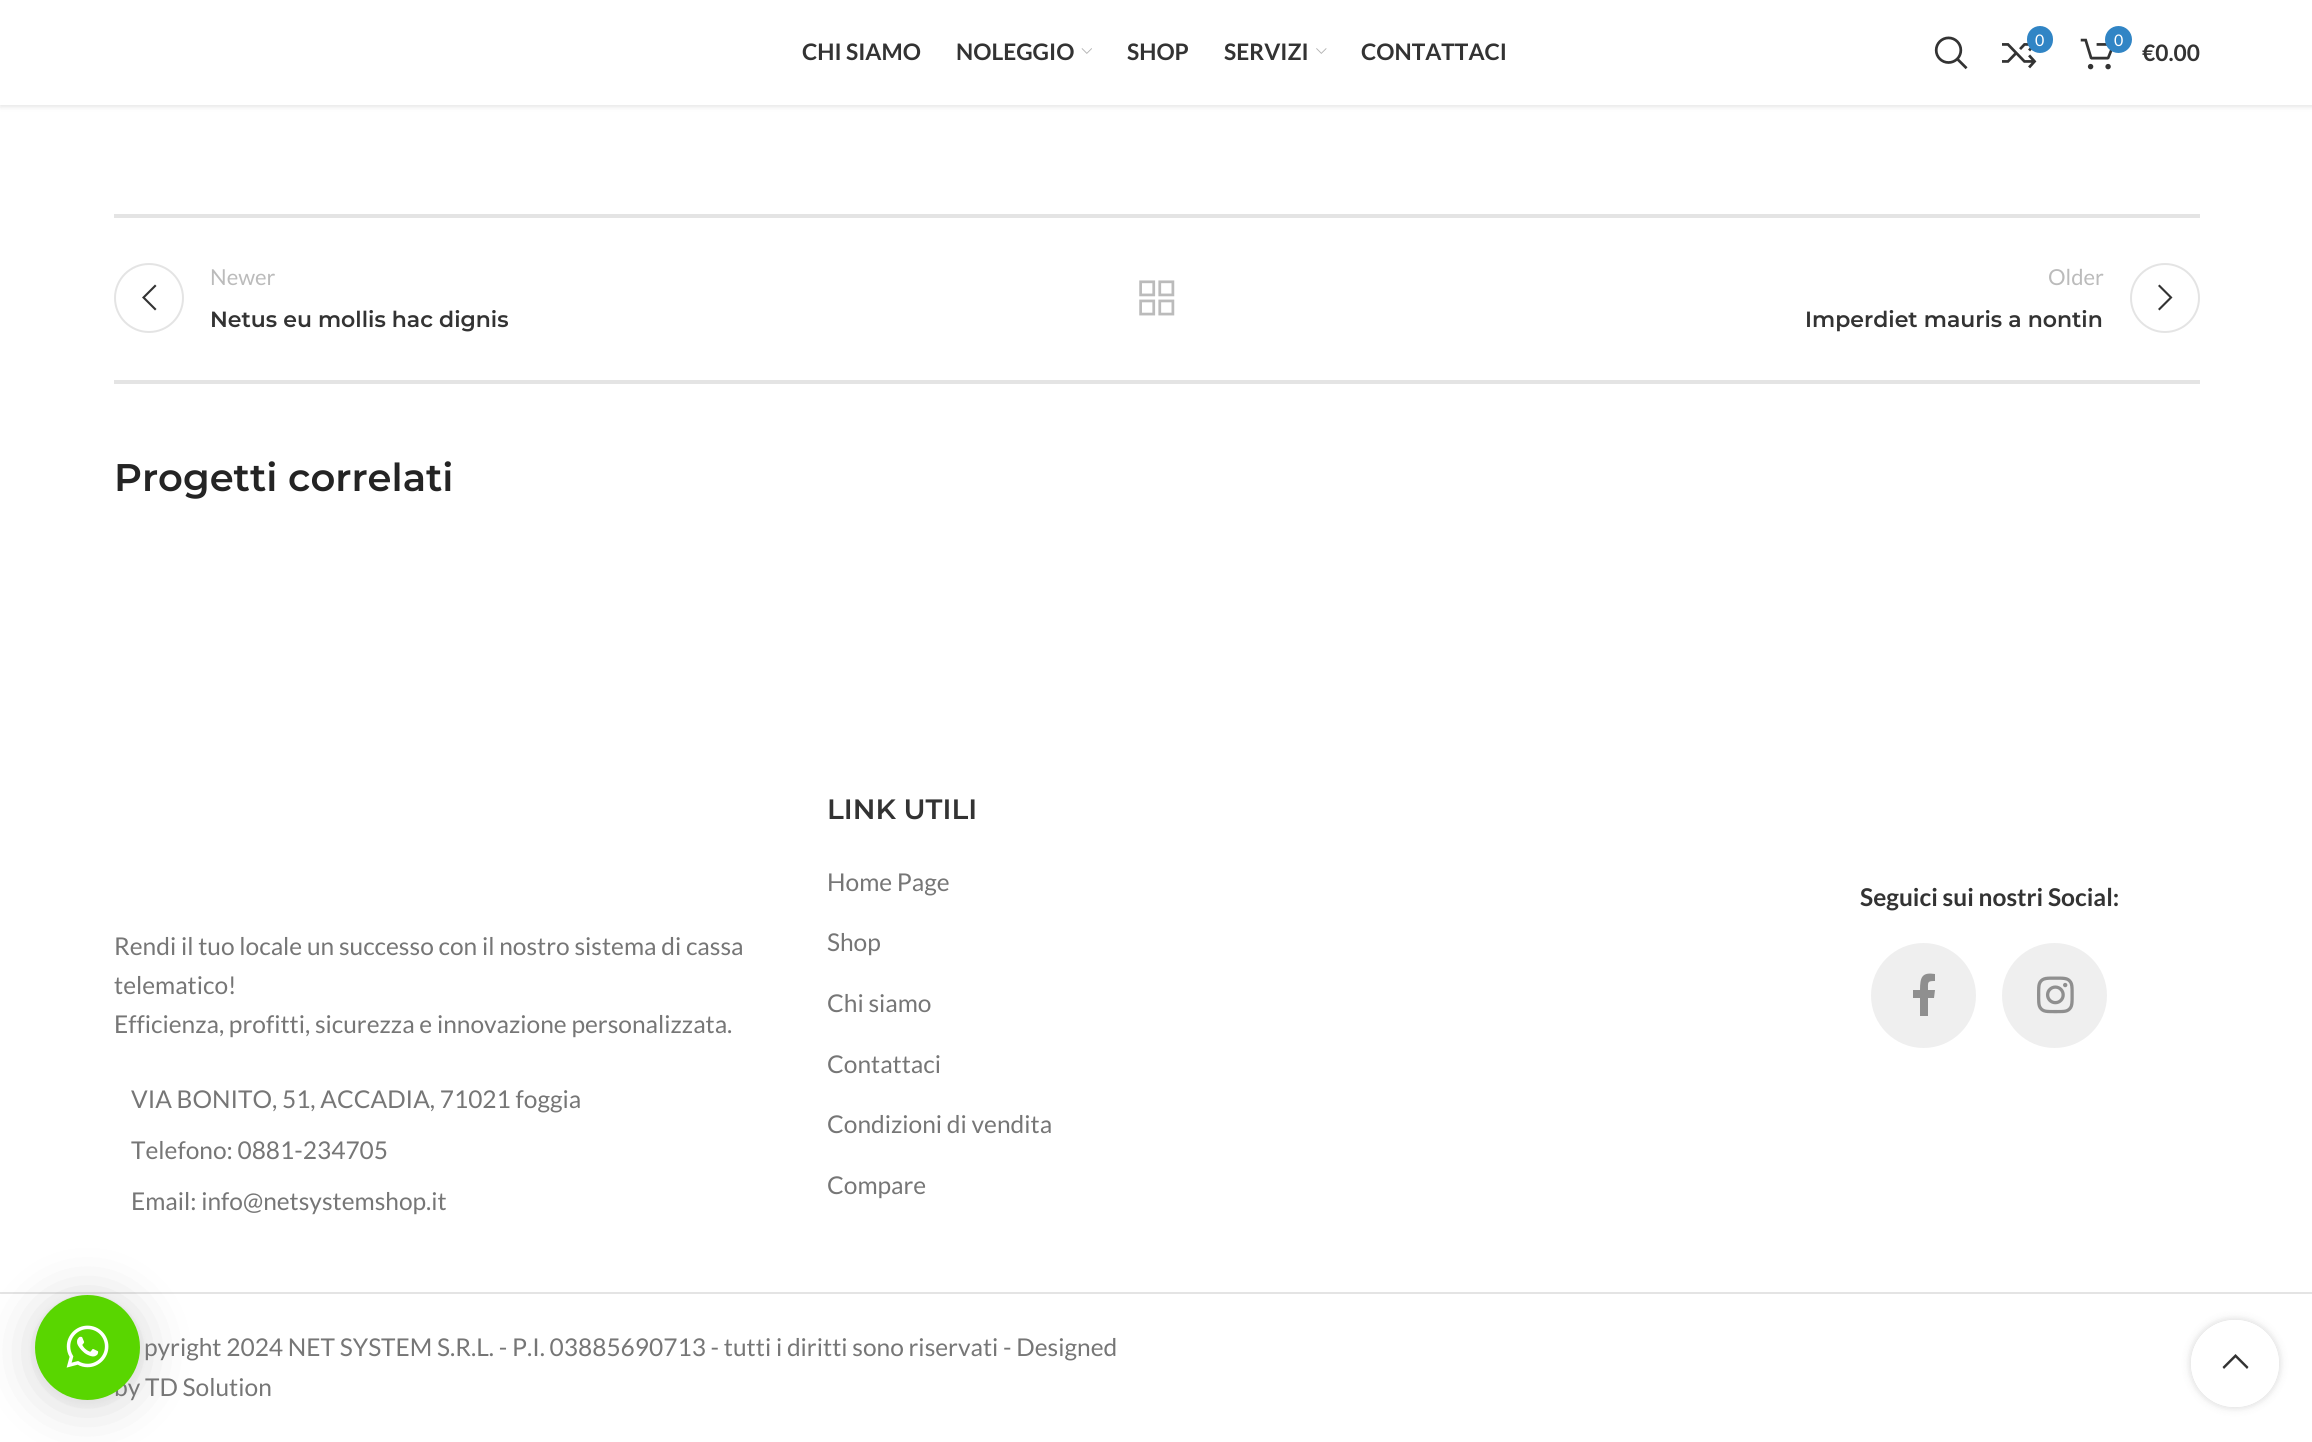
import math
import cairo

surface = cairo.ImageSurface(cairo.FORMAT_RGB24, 2312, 1442)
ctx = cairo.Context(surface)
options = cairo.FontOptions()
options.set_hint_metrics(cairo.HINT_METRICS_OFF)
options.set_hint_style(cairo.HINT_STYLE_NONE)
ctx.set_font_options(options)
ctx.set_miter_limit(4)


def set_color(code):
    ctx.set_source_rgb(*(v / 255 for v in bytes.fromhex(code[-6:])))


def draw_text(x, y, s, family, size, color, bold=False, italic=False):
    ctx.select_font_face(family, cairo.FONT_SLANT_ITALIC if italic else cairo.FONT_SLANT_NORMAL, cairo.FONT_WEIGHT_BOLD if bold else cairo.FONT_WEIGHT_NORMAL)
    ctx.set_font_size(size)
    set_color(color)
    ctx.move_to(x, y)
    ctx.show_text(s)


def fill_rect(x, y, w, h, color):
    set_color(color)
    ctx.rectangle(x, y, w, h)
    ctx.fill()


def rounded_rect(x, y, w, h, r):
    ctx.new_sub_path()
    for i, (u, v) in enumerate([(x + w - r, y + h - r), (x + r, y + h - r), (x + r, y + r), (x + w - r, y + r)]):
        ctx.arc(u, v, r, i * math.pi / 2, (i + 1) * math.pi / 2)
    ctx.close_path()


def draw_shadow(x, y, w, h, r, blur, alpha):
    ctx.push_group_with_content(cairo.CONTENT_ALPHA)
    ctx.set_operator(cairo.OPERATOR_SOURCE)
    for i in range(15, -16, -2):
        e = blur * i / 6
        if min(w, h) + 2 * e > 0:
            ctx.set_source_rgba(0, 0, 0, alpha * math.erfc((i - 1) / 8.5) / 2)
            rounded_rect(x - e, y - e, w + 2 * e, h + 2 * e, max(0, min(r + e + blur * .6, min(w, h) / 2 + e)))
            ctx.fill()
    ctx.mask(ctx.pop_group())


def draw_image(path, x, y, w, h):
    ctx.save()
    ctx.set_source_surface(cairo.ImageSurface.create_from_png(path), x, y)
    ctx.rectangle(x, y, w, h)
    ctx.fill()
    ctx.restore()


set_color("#ffffff")
ctx.paint()
fill_rect(0, 1292, 2312, 2, "#e4e4e4")
set_color("#000000")
draw_shadow(35, 1299, 105, 105, 52.5, 28, 0.16)
draw_shadow(35, 1297, 105, 105, 52.5, 5, 0.06)
draw_text(114, 1396, "by TD Solution", "Lato", 24.5, "#767676")
set_color("#59d600")
ctx.new_path()
ctx.arc(87.5, 1347.5, 52.5, 0, 2 * math.pi)
ctx.fill()
draw_image("assets/img1.png", 66, 1325, 43, 43)
set_color("#000000")
draw_shadow(0, 2, 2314, 105, 0, 2.5, 0.1)
fill_rect(0, 0, 2312, 105, "#ffffff")
draw_text(802, 60, "CHI SIAMO", "Lato", 22.75, "#333333", bold=True)
draw_text(956, 60, "NOLEGGIO", "Lato", 22.75, "#333333", bold=True)
draw_image("assets/img2.png", 1081, 48, 11, 6)
draw_text(1127, 60, "SHOP", "Lato", 22.75, "#333333", bold=True)
draw_text(1224, 60, "SERVIZI", "Lato", 22.75, "#333333", bold=True)
draw_image("assets/img3.png", 1316, 48, 11, 6)
draw_text(1361, 60, "CONTATTACI", "Lato", 22.75, "#333333", bold=True)
draw_image("assets/img4.png", 1934, 36, 34, 34)
draw_image("assets/img5.png", 2002, 43, 35, 26)
set_color("#3185c5")
rounded_rect(2027, 26, 26, 27, 13)
ctx.fill()
draw_text(2035, 46, "0", "Lato", 16, "#ffffff")
draw_image("assets/img6.png", 2080, 38, 33, 32)
set_color("#3185c5")
ctx.arc(2118.5, 39.5, 13.5, 0, 2 * math.pi)
ctx.fill()
draw_text(2114, 46, "0", "Lato", 16, "#ffffff")
draw_text(2142, 61, "€0.00", "Lato", 22.75, "#333333", bold=True)
fill_rect(114, 214, 2086, 4, "#e4e4e4")
fill_rect(114, 380, 2086, 4, "#e4e4e4")
ctx.new_path()
ctx.arc(149, 298, 34, 0, 2 * math.pi)
ctx.stroke()
set_color("#333333")
ctx.new_path()
ctx.move_to(156.5, 286)
ctx.line_to(155, 284.5)
ctx.line_to(142, 297.5)
ctx.line_to(155, 310.5)
ctx.line_to(156.5, 309)
ctx.line_to(145, 297.5)
ctx.close_path()
ctx.fill()
draw_text(210, 285, "Newer", "Lato", 22, "#bbbbbb")
draw_text(210, 327, "Netus eu mollis hac dignis", "Montserrat SemiBold", 22, "#333333")
draw_image("assets/img7.png", 1139, 280, 36, 36)
draw_text(2048, 285, "Older", "Lato", 22, "#bbbbbb")
ctx.new_path()
ctx.arc(2165, 298, 34, 0, 2 * math.pi)
set_color("#e4e4e4")
ctx.stroke()
set_color("#333333")
ctx.new_path()
ctx.move_to(2158, 286)
ctx.line_to(2169.5, 297.5)
ctx.line_to(2158, 309)
ctx.line_to(2159.5, 310.5)
ctx.line_to(2172.5, 297.5)
ctx.line_to(2159.5, 284.5)
ctx.close_path()
ctx.fill()
draw_text(1805, 327, "Imperdiet mauris a nontin", "Montserrat SemiBold", 22, "#333333")
draw_text(114, 491, "Progetti correlati", "Montserrat SemiBold", 38.5, "#242424")
draw_text(827, 819, "LINK UTILI", "Montserrat SemiBold", 28, "#333333")
draw_text(827, 891, "Home Page", "Lato", 24.5, "#767676")
draw_text(827, 951, "Shop", "Lato", 24.5, "#767676")
draw_text(827, 1012, "Chi siamo", "Lato", 24.5, "#767676")
draw_text(827, 1073, "Contattaci", "Lato", 24.5, "#767676")
draw_text(827, 1133, "Condizioni di vendita", "Lato", 24.5, "#767676")
draw_text(827, 1194, "Compare", "Lato", 24.5, "#767676")
draw_text(1860, 906, "Seguici sui nostri Social:", "Lato", 24.5, "#333333", bold=True)
set_color("#efefef")
ctx.new_path()
ctx.arc(1923.5, 995.5, 52.5, 0, 2 * math.pi)
ctx.fill()
set_color("#8f8f8f")
ctx.new_path()
ctx.move_to(1934, 998)
ctx.line_to(1935, 990)
ctx.line_to(1928, 990)
ctx.curve_to(1928, 982, 1927, 981, 1935, 981)
ctx.line_to(1935, 974)
ctx.curve_to(1922, 972, 1920, 977, 1920, 990)
ctx.line_to(1913, 990)
ctx.line_to(1913, 998)
ctx.line_to(1920, 998)
ctx.line_to(1920, 1016)
ctx.line_to(1928, 1016)
ctx.line_to(1928, 998)
ctx.close_path()
ctx.fill()
set_color("#efefef")
ctx.arc(2054.5, 995.5, 52.5, 0, 2 * math.pi)
ctx.fill()
draw_image("assets/img8.png", 2037, 976, 37, 38)
draw_text(114, 955, "Rendi il tuo locale un successo con il nostro sistema di cassa", "Lato", 24.5, "#767676")
draw_text(114, 994, "telematico!", "Lato", 24.5, "#767676")
draw_text(114, 1033, "Efficienza, profitti, sicurezza e innovazione personalizzata.", "Lato", 24.5, "#767676")
draw_text(131, 1108, "VIA BONITO, 51, ACCADIA, 71021 foggia", "Lato", 24.5, "#767676")
draw_text(131, 1159, "Telefono: 0881-234705", "Lato", 24.5, "#767676")
draw_text(131, 1210, "Email: info@netsystemshop.it", "Lato", 24.5, "#767676")
draw_text(144, 1356, "pyright 2024 NET SYSTEM S.R.L. - P.I. 03885690713 - tutti i diritti sono riservati - Designed", "Lato", 24.5, "#767676")
ctx.save()
ctx.set_fill_rule(cairo.FILL_RULE_EVEN_ODD)
ctx.new_path()
ctx.move_to(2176, 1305)
ctx.line_to(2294, 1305)
ctx.line_to(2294, 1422)
ctx.line_to(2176, 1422)
ctx.close_path()
ctx.move_to(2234.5, 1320)
ctx.line_to(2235.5, 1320)
ctx.curve_to(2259.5, 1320, 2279, 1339.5, 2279, 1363.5)
ctx.curve_to(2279, 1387.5, 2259.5, 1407, 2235.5, 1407)
ctx.line_to(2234.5, 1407)
ctx.curve_to(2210.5, 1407, 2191, 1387.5, 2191, 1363.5)
ctx.curve_to(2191, 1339.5, 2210.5, 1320, 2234.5, 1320)
ctx.close_path()
ctx.clip()
set_color("#000000")
draw_shadow(2191, 1320, 88, 87, 43.5, 4.5, 0.17)
ctx.restore()
ctx.set_source_rgba(1, 1, 1, 0.9)
rounded_rect(2191, 1320, 88, 87, 43.5)
ctx.fill()
set_color("#333333")
ctx.new_path()
ctx.move_to(2247, 1369)
ctx.line_to(2248.5, 1367)
ctx.line_to(2235.5, 1354)
ctx.line_to(2222.5, 1367)
ctx.line_to(2224, 1369)
ctx.line_to(2235.5, 1357.5)
ctx.close_path()
ctx.fill()
surface.write_to_png("output.png")
